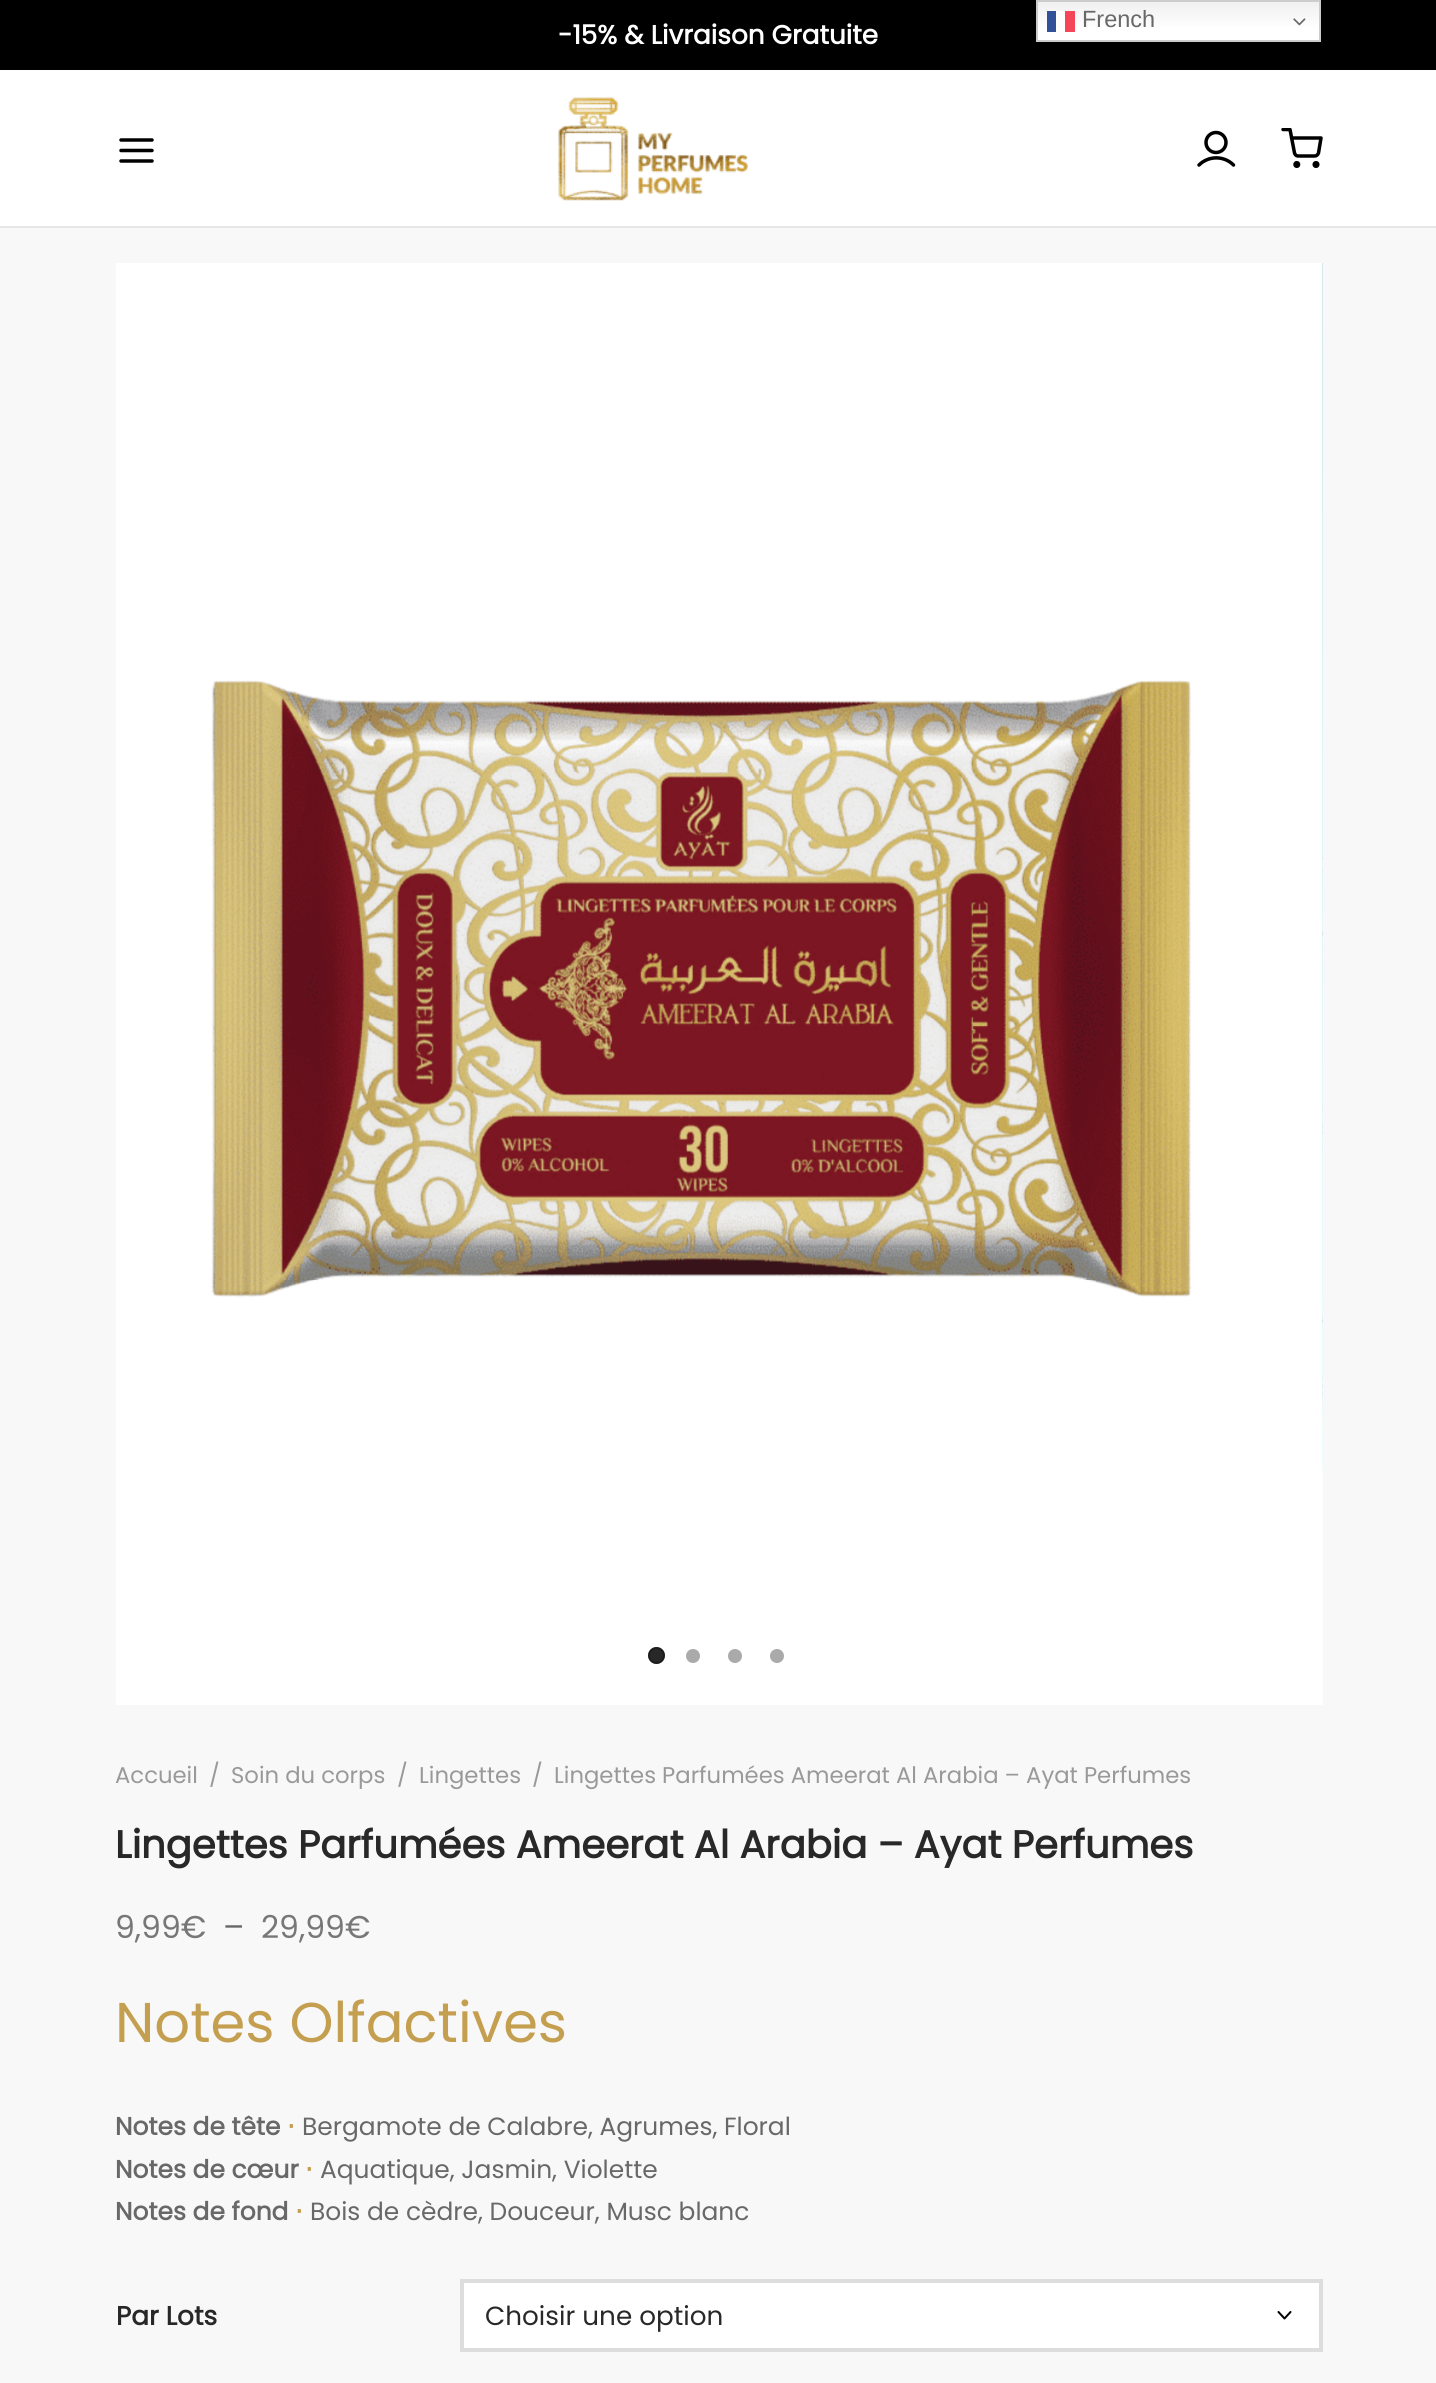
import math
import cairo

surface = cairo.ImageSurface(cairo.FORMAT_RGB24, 1436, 2383)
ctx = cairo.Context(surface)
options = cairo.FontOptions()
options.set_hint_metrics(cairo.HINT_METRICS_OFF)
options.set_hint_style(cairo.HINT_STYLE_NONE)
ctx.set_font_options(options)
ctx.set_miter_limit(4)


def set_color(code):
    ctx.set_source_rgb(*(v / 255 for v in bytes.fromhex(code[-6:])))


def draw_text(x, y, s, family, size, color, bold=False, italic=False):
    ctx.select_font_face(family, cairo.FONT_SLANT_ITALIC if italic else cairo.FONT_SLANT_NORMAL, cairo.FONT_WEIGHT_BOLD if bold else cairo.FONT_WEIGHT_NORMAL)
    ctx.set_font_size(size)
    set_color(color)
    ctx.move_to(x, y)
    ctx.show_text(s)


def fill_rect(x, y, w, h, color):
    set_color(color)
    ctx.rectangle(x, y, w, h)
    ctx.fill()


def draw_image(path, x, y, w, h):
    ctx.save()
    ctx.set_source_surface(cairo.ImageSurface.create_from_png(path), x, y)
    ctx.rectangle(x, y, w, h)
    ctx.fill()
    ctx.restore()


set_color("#f8f8f8")
ctx.paint()
fill_rect(0, 0, 1436, 70, "#000000")
gradient = cairo.LinearGradient(1179, 0, 1179, 42)
gradient.add_color_stop_rgba(0, 0.937, 0.937, 0.937, 1)
gradient.add_color_stop_rgba(0.7, 1, 1, 1, 1)
ctx.set_source(gradient)
ctx.rectangle(1038, 2, 281, 38)
ctx.fill()
gradient = cairo.LinearGradient(1179, 0, 1179, 42)
gradient.add_color_stop_rgba(0, 0.988, 0.988, 0.988, 1)
gradient.add_color_stop_rgba(0.7, 1, 1, 1, 1)
ctx.set_source(gradient)
ctx.rectangle(1056, 11, 9, 14)
ctx.fill()
ctx.rectangle(1037, 1, 283, 40)
set_color("#cccccc")
ctx.stroke()
fill_rect(1047, 11, 9, 21, "#335198")
fill_rect(1065, 11, 10, 21, "#f54659")
draw_text(1082, 27, "French", "Liberation Sans", 23.5, "#686868")
draw_image("assets/img1.png", 1293, 18, 13, 8)
draw_text(558, 44, "-15% & Livraison Gratuite", "Poppins", 26.25, "#ffffff", bold=True)
fill_rect(0, 70, 1436, 156, "#ffffff")
ctx.new_path()
ctx.move_to(121, 150.5)
ctx.line_to(152, 150.5)
ctx.move_to(121, 140)
ctx.line_to(152, 140)
ctx.move_to(121, 161)
ctx.line_to(152, 161)
set_color("#000000")
ctx.set_line_width(3.5)
ctx.set_line_cap(cairo.LINE_CAP_ROUND)
ctx.set_line_join(cairo.LINE_JOIN_ROUND)
ctx.stroke()
draw_image("assets/img2.png", 558, 97, 190, 104)
ctx.arc(1216, 142.5, 10, 0, 2 * math.pi)
ctx.set_line_cap(cairo.LINE_CAP_BUTT)
ctx.set_line_join(cairo.LINE_JOIN_MITER)
ctx.stroke()
ctx.new_path()
ctx.move_to(1233.5, 165)
ctx.curve_to(1224, 155.5, 1208.5, 155.5, 1199, 165)
ctx.set_line_cap(cairo.LINE_CAP_ROUND)
ctx.set_line_join(cairo.LINE_JOIN_ROUND)
ctx.stroke()
ctx.arc(1296.8, 164.5, 1.8, 0, 2 * math.pi)
ctx.set_line_cap(cairo.LINE_CAP_BUTT)
ctx.set_line_join(cairo.LINE_JOIN_MITER)
ctx.stroke()
ctx.arc(1316, 164.5, 1.8, 0, 2 * math.pi)
ctx.stroke()
ctx.save()
ctx.rectangle(1281, 128, 42, 42)
ctx.clip()
ctx.new_path()
ctx.move_to(1283, 129.5)
ctx.line_to(1290, 129.5)
ctx.line_to(1294.5, 153)
ctx.curve_to(1295, 154.5, 1296, 156, 1298, 156)
ctx.line_to(1315, 156)
ctx.curve_to(1316.5, 156, 1318, 154.5, 1318.5, 153)
ctx.line_to(1321, 138)
ctx.line_to(1291.5, 138)
ctx.set_line_cap(cairo.LINE_CAP_ROUND)
ctx.set_line_join(cairo.LINE_JOIN_ROUND)
ctx.stroke()
ctx.restore()
fill_rect(0, 226, 1436, 2, "#e6e6e6")
draw_image("assets/img3.png", 116, 263, 1207, 1442)
draw_image("assets/img4.png", 1322, 263, 1, 1208)
set_color("#282828")
ctx.arc(656.5, 1655.5, 8.5, 0, 2 * math.pi)
ctx.fill()
ctx.arc(656.5, 1655.5, 7.5, 0, 2 * math.pi)
ctx.set_source_rgba(0, 0, 0, 0.3)
ctx.set_line_width(2)
ctx.stroke()
set_color("#aaaaaa")
ctx.arc(693, 1656, 7, 0, 2 * math.pi)
ctx.fill()
ctx.arc(735, 1656, 7, 0, 2 * math.pi)
ctx.fill()
ctx.arc(777, 1656, 7, 0, 2 * math.pi)
ctx.fill()
draw_text(115, 1783, "Accueil", "Poppins", 22.75, "#999999")
draw_text(209, 1783, "/", "Poppins", 22.75, "#999999")
draw_text(231, 1783, "Soin du corps", "Poppins", 22.75, "#999999")
draw_text(397, 1783, "/", "Poppins", 22.75, "#999999")
draw_text(419, 1783, "Lingettes", "Poppins", 22.75, "#999999")
draw_text(532, 1783, "/", "Poppins", 22.75, "#999999")
draw_text(554, 1783, "Lingettes Parfumées Ameerat Al Arabia – Ayat Perfumes", "Poppins", 22.75, "#999999")
draw_text(115, 1858, "Lingettes Parfumées Ameerat Al Arabia – Ayat Perfumes", "Poppins", 38.5, "#282828", bold=True)
draw_text(115, 1938, "9,99€", "Poppins", 31.5, "#777777")
draw_text(223, 1938, "–", "Poppins", 31.5, "#686868")
draw_text(261, 1938, "29,99€", "Poppins", 31.5, "#777777")
draw_text(115, 2042, "Notes Olfactives", "Poppins", 56, "#c49f50")
draw_text(115, 2135, "Notes de tête", "Poppins", 24.9, "#686868", bold=True)
draw_text(287, 2135, "⋅", "DejaVu Sans", 24.9, "#c49f50", bold=True)
draw_text(302, 2135, "Bergamote de Calabre, Agrumes, Floral", "Poppins", 24.9, "#686868")
draw_text(115, 2178, "Notes de cœur", "Poppins", 24.9, "#686868", bold=True)
draw_text(305, 2178, "⋅", "DejaVu Sans", 24.9, "#c49f50", bold=True)
draw_text(320, 2178, "Aquatique, Jasmin, Violette", "Poppins", 24.9, "#686868")
draw_text(115, 2220, "Notes de fond", "Poppins", 24.9, "#686868", bold=True)
draw_text(295, 2220, "⋅", "DejaVu Sans", 24.9, "#c49f50", bold=True)
draw_text(310, 2220, "Bois de cèdre, Douceur, Musc blanc", "Poppins", 24.9, "#686868")
draw_text(116, 2325, "Par Lots", "Poppins", 26.25, "#282828", bold=True)
fill_rect(464, 2283, 855, 65, "#ffffff")
ctx.new_path()
ctx.move_to(1278.5, 2312)
ctx.line_to(1284.5, 2318.5)
ctx.line_to(1290.5, 2312)
set_color("#000000")
ctx.set_line_cap(cairo.LINE_CAP_ROUND)
ctx.set_line_join(cairo.LINE_JOIN_ROUND)
ctx.stroke()
ctx.rectangle(462, 2281, 859, 69)
set_color("#dddddd")
ctx.set_line_width(4)
ctx.set_line_cap(cairo.LINE_CAP_BUTT)
ctx.set_line_join(cairo.LINE_JOIN_MITER)
ctx.stroke()
draw_text(485, 2325, "Choisir une option", "Poppins", 26.25, "#282828")
surface.write_to_png("output.png")
